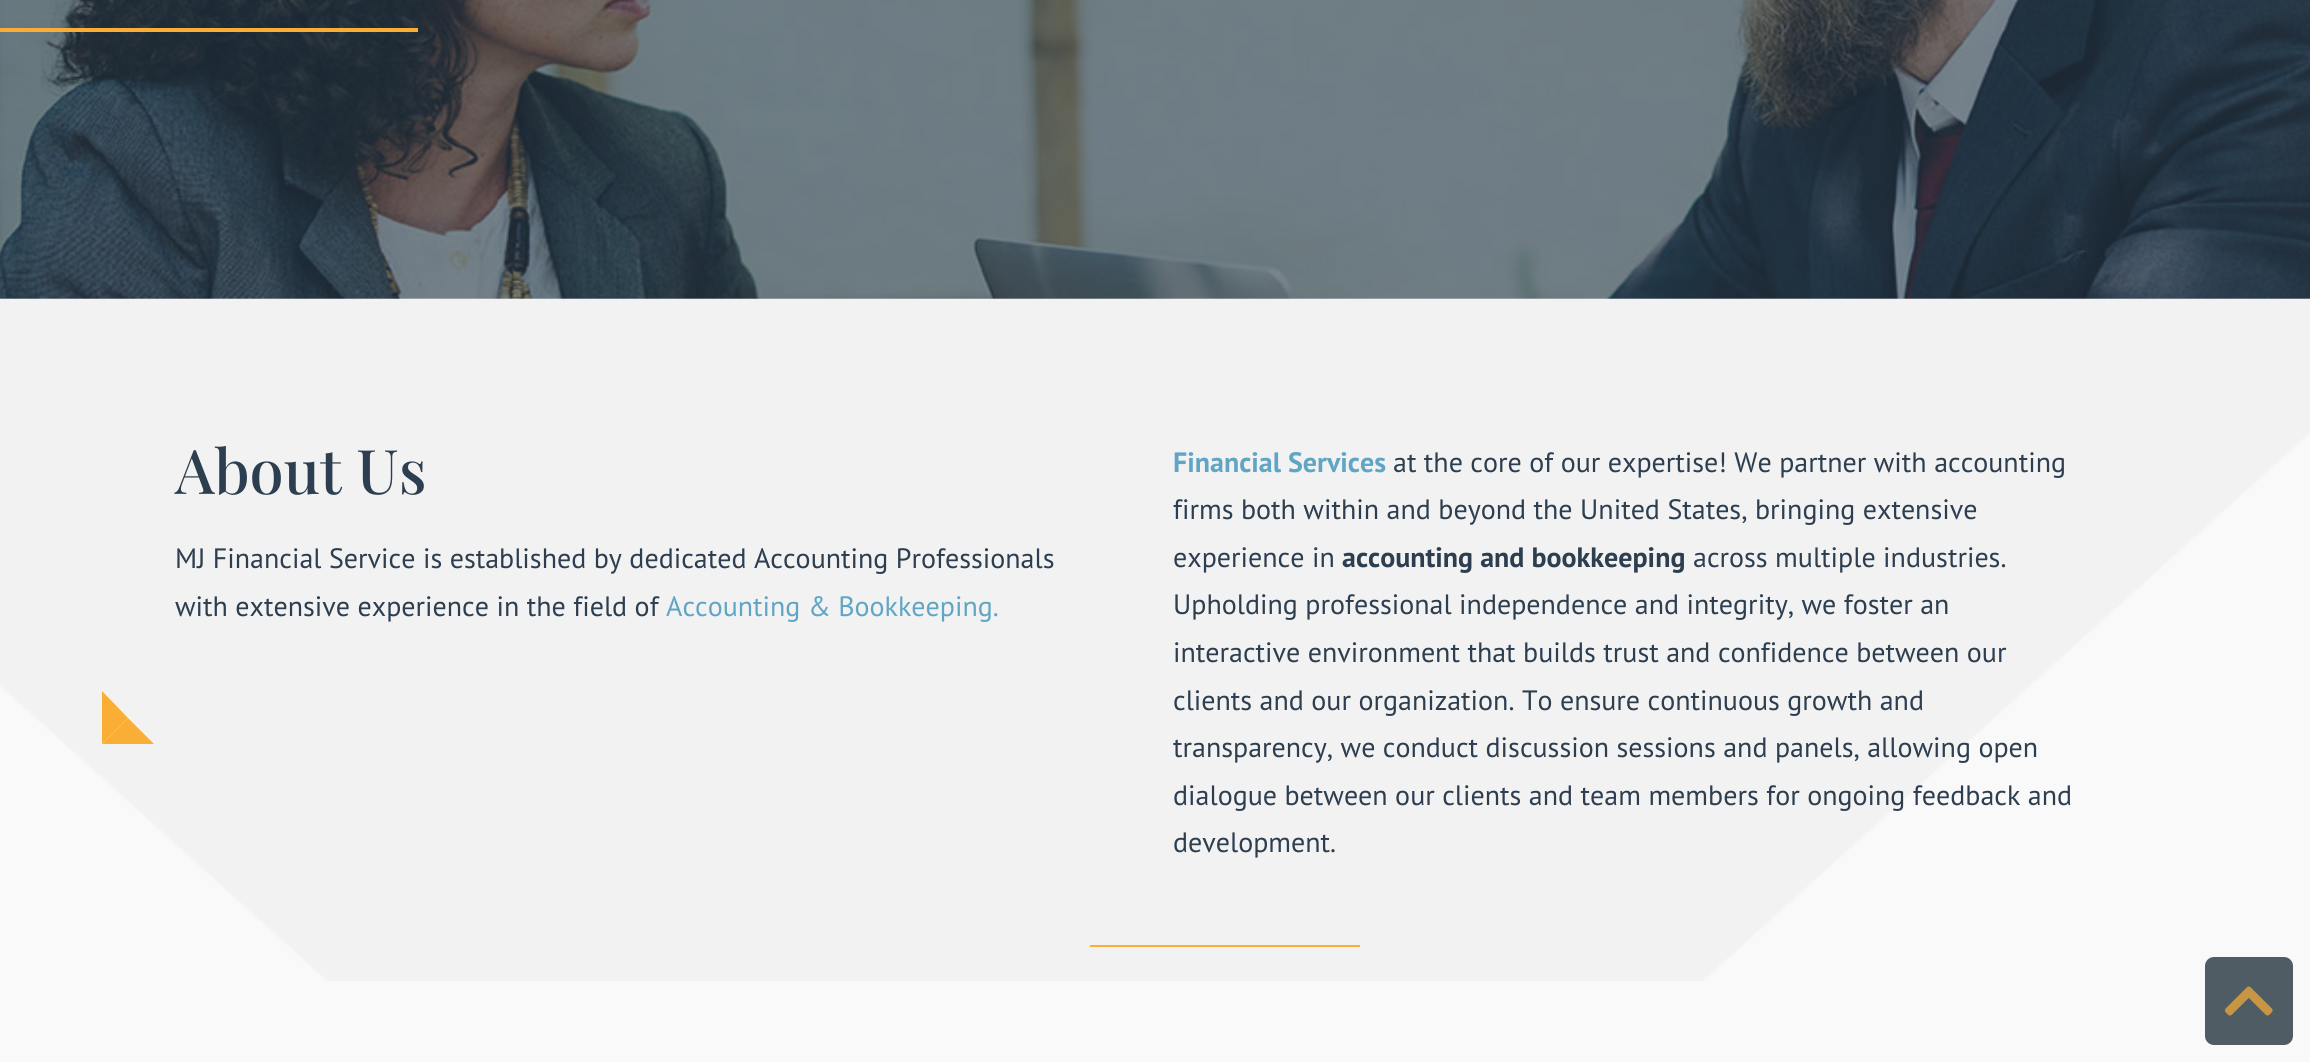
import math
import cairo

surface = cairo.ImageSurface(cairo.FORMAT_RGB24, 2310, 1062)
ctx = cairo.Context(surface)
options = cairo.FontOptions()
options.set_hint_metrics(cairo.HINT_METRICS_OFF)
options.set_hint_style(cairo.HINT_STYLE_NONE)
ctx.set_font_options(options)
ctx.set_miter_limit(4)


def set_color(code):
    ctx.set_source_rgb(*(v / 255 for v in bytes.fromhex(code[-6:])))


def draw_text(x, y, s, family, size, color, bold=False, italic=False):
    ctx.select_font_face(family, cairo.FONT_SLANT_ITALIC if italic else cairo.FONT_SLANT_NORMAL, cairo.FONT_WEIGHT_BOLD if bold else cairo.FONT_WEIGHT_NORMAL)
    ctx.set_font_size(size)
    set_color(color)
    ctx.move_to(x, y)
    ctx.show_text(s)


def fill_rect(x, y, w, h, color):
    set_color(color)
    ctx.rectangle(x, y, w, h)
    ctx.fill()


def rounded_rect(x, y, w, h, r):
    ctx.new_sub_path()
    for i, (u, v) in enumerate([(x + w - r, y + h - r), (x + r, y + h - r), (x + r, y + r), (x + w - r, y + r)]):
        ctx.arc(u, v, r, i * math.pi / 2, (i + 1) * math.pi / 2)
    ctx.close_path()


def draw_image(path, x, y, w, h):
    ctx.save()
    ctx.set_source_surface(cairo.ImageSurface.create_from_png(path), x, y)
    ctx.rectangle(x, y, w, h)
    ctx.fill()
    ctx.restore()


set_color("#f9f9f9")
ctx.paint()
draw_image("assets/img1.png", 0, 0, 2310, 299)
fill_rect(0, 28, 418, 4, "#fbae35")
draw_image("assets/img2.png", 0, 298, 2310, 683)
draw_text(175, 494, "About Us", "Playfair Display Medium", 61.5, "#2c3e50")
draw_text(175, 568, "MJ Financial Service is established by dedicated Accounting Professionals", "PT Sans", 28, "#2c3e50")
draw_text(175, 616, "with extensive experience in the field of", "PT Sans", 28, "#2c3e50")
draw_text(666, 616, "Accounting & Bookkeeping.", "PT Sans", 28, "#61a5c5")
set_color("#fbae35")
ctx.new_path()
ctx.move_to(154, 744)
ctx.line_to(102, 744)
ctx.line_to(128, 718)
ctx.close_path()
ctx.fill()
ctx.new_path()
ctx.move_to(102, 744)
ctx.line_to(102, 691)
ctx.line_to(128, 718)
ctx.close_path()
ctx.fill()
draw_text(1173, 472, "Financial Services", "PT Sans", 28, "#61a5c5", bold=True)
draw_text(1393, 472, "at the core of our expertise! We partner with accounting", "PT Sans", 28, "#2c3e50")
draw_text(1173, 519, "firms both within and beyond the United States, bringing extensive", "PT Sans", 28, "#2c3e50")
draw_text(1173, 567, "experience in", "PT Sans", 28, "#2c3e50")
draw_text(1342, 567, "accounting and bookkeeping", "PT Sans", 28, "#2c3e50", bold=True)
draw_text(1693, 567, "across multiple industries.", "PT Sans", 28, "#2c3e50")
draw_text(1173, 614, "Upholding professional independence and integrity, we foster an", "PT Sans", 28, "#2c3e50")
draw_text(1173, 662, "interactive environment that builds trust and confidence between our", "PT Sans", 28, "#2c3e50")
draw_text(1173, 710, "clients and our organization. To ensure continuous growth and", "PT Sans", 28, "#2c3e50")
draw_text(1173, 757, "transparency, we conduct discussion sessions and panels, allowing open", "PT Sans", 28, "#2c3e50")
draw_text(1173, 805, "dialogue between our clients and team members for ongoing feedback and", "PT Sans", 28, "#2c3e50")
draw_text(1173, 852, "development.", "PT Sans", 28, "#2c3e50")
fill_rect(1090, 945, 270, 2, "#fbae35")
set_color("#505c63")
rounded_rect(2205, 957, 88, 88, 9)
ctx.fill()
draw_image("assets/img3.png", 2224, 986, 49, 30)
surface.write_to_png("output.png")
